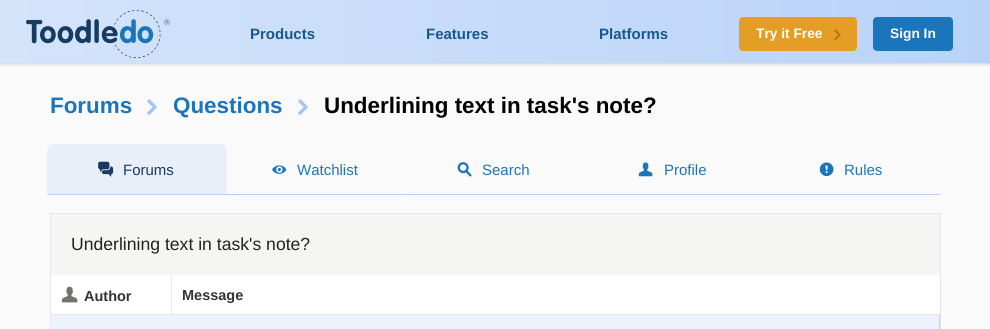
import math
import cairo

surface = cairo.ImageSurface(cairo.FORMAT_RGB24, 990, 329)
ctx = cairo.Context(surface)
options = cairo.FontOptions()
options.set_hint_metrics(cairo.HINT_METRICS_OFF)
options.set_hint_style(cairo.HINT_STYLE_NONE)
ctx.set_font_options(options)
ctx.set_miter_limit(4)


def set_color(code):
    ctx.set_source_rgb(*(v / 255 for v in bytes.fromhex(code[-6:])))


def draw_text(x, y, s, family, size, color, bold=False, italic=False):
    ctx.select_font_face(family, cairo.FONT_SLANT_ITALIC if italic else cairo.FONT_SLANT_NORMAL, cairo.FONT_WEIGHT_BOLD if bold else cairo.FONT_WEIGHT_NORMAL)
    ctx.set_font_size(size)
    set_color(color)
    ctx.move_to(x, y)
    ctx.show_text(s)


def fill_rect(x, y, w, h, color):
    set_color(color)
    ctx.rectangle(x, y, w, h)
    ctx.fill()


def rounded_rect(x, y, w, h, r):
    ctx.new_sub_path()
    for i, (u, v) in enumerate([(x + w - r, y + h - r), (x + r, y + h - r), (x + r, y + r), (x + w - r, y + r)]):
        ctx.arc(u, v, r, i * math.pi / 2, (i + 1) * math.pi / 2)
    ctx.close_path()


def draw_shadow(x, y, w, h, r, blur, alpha):
    ctx.push_group_with_content(cairo.CONTENT_ALPHA)
    ctx.set_operator(cairo.OPERATOR_SOURCE)
    for i in range(15, -16, -2):
        e = blur * i / 6
        if min(w, h) + 2 * e > 0:
            ctx.set_source_rgba(0, 0, 0, alpha * math.erfc((i - 1) / 8.5) / 2)
            rounded_rect(x - e, y - e, w + 2 * e, h + 2 * e, max(0, min(r + e + blur * .6, min(w, h) / 2 + e)))
            ctx.fill()
    ctx.mask(ctx.pop_group())


def draw_image(path, x, y, w, h):
    ctx.save()
    ctx.set_source_surface(cairo.ImageSurface.create_from_png(path), x, y)
    ctx.rectangle(x, y, w, h)
    ctx.fill()
    ctx.restore()


set_color("#fafafa")
ctx.paint()
set_color("#333333")
draw_shadow(0, 0, 990, 63, 0, 2.5, 0.35)
gradient = cairo.LinearGradient(0, 32, 990, 31)
gradient.add_color_stop_rgba(0, 0.831, 0.894, 0.984, 1)
gradient.add_color_stop_rgba(1, 0.725, 0.827, 0.973, 1)
ctx.set_source(gradient)
ctx.rectangle(0, 0, 990, 63)
ctx.fill()
draw_image("assets/img1.png", 26, 10, 144, 48)
draw_text(250, 39, "Products", "Liberation Sans", 15, "#18588e", bold=True)
draw_text(426, 39, "Features", "Liberation Sans", 15, "#18588e", bold=True)
draw_text(599, 39, "Platforms", "Liberation Sans", 15, "#18588e", bold=True)
set_color("#e49e26")
rounded_rect(739, 17, 118, 34, 4)
ctx.fill()
draw_text(756, 38, "Try it Free", "Liberation Sans", 13.75, "#ffffff", bold=True)
draw_image("assets/img2.png", 834, 29, 7, 12)
set_color("#1b75bc")
rounded_rect(873, 17, 80, 34, 4)
ctx.fill()
draw_text(890, 38, "Sign In", "Liberation Sans", 13.75, "#ffffff", bold=True)
draw_text(50, 113, "Forums", "Liberation Sans", 22.4, "#1b75bc", bold=True)
draw_image("assets/img3.png", 147, 99, 10, 16)
draw_text(173, 113, "Questions", "Liberation Sans", 22.4, "#1b75bc", bold=True)
draw_image("assets/img3.png", 298, 99, 10, 16)
draw_text(324, 113, "Underlining text in task's note?", "Liberation Sans", 22.4, "#000000", bold=True)
set_color("#e9eff9")
ctx.new_path()
ctx.move_to(54, 144)
ctx.line_to(220, 144)
ctx.curve_to(224, 144, 227, 147, 227, 151)
ctx.line_to(227, 195)
ctx.line_to(47, 195)
ctx.line_to(47, 151)
ctx.curve_to(47, 147, 50, 144, 54, 144)
ctx.close_path()
ctx.fill()
set_color("#b9d3f8")
ctx.new_path()
ctx.move_to(227, 195)
ctx.line_to(226, 194)
ctx.line_to(48, 194)
ctx.line_to(47, 195)
ctx.close_path()
ctx.fill()
draw_image("assets/img4.png", 98, 161, 16, 16)
draw_text(123, 175, "Forums", "Liberation Sans", 15, "#173c60")
set_color("#b9d3f8")
ctx.new_path()
ctx.move_to(405, 195)
ctx.line_to(225, 195)
ctx.line_to(226, 194)
ctx.line_to(404, 194)
ctx.close_path()
ctx.fill()
draw_image("assets/img5.png", 272, 165, 15, 9)
draw_text(297, 175, "Watchlist", "Liberation Sans", 15, "#1b75bc")
set_color("#b9d3f8")
ctx.new_path()
ctx.move_to(584, 195)
ctx.line_to(404, 195)
ctx.line_to(405, 194)
ctx.line_to(583, 194)
ctx.close_path()
ctx.fill()
draw_image("assets/img6.png", 457, 162, 15, 15)
draw_text(482, 175, "Search", "Liberation Sans", 15, "#1b75bc")
set_color("#b9d3f8")
ctx.new_path()
ctx.move_to(763, 195)
ctx.line_to(582, 195)
ctx.line_to(583, 194)
ctx.line_to(762, 194)
ctx.close_path()
ctx.fill()
draw_image("assets/img7.png", 638, 162, 15, 15)
draw_text(664, 175, "Profile", "Liberation Sans", 15, "#1b75bc")
set_color("#b9d3f8")
ctx.new_path()
ctx.move_to(941, 195)
ctx.line_to(761, 195)
ctx.line_to(762, 194)
ctx.line_to(940, 194)
ctx.close_path()
ctx.fill()
draw_image("assets/img8.png", 819, 162, 15, 15)
draw_text(844, 175, "Rules", "Liberation Sans", 15, "#1b75bc")
fill_rect(939, 275, 1, 39, "#ffffff")
ctx.rectangle(50.5, 213.5, 890, 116)
set_color("#e4e6e9")
ctx.set_line_width(1)
ctx.stroke()
fill_rect(51, 214, 889, 61, "#f5f5f3")
draw_text(71, 250, "Underlining text in task's note?", "Liberation Sans", 17.6, "#222222")
fill_rect(51, 275, 120, 39, "#ffffff")
fill_rect(939, 314, 1, 15, "#b9d3f8")
fill_rect(171, 314, 769, 1, "#e4e6e9")
fill_rect(171, 275, 1, 40, "#e4e6e9")
fill_rect(50, 314, 122, 1, "#e4e6e9")
draw_image("assets/img9.png", 62, 286, 16, 17)
draw_text(84, 301, "Author", "Liberation Sans", 14.5, "#333333", bold=True)
fill_rect(172, 275, 767, 39, "#ffffff")
draw_text(182, 300, "Message", "Liberation Sans", 14.5, "#333333", bold=True)
fill_rect(51, 315, 888, 14, "#ecf3fc")
surface.write_to_png("output.png")
